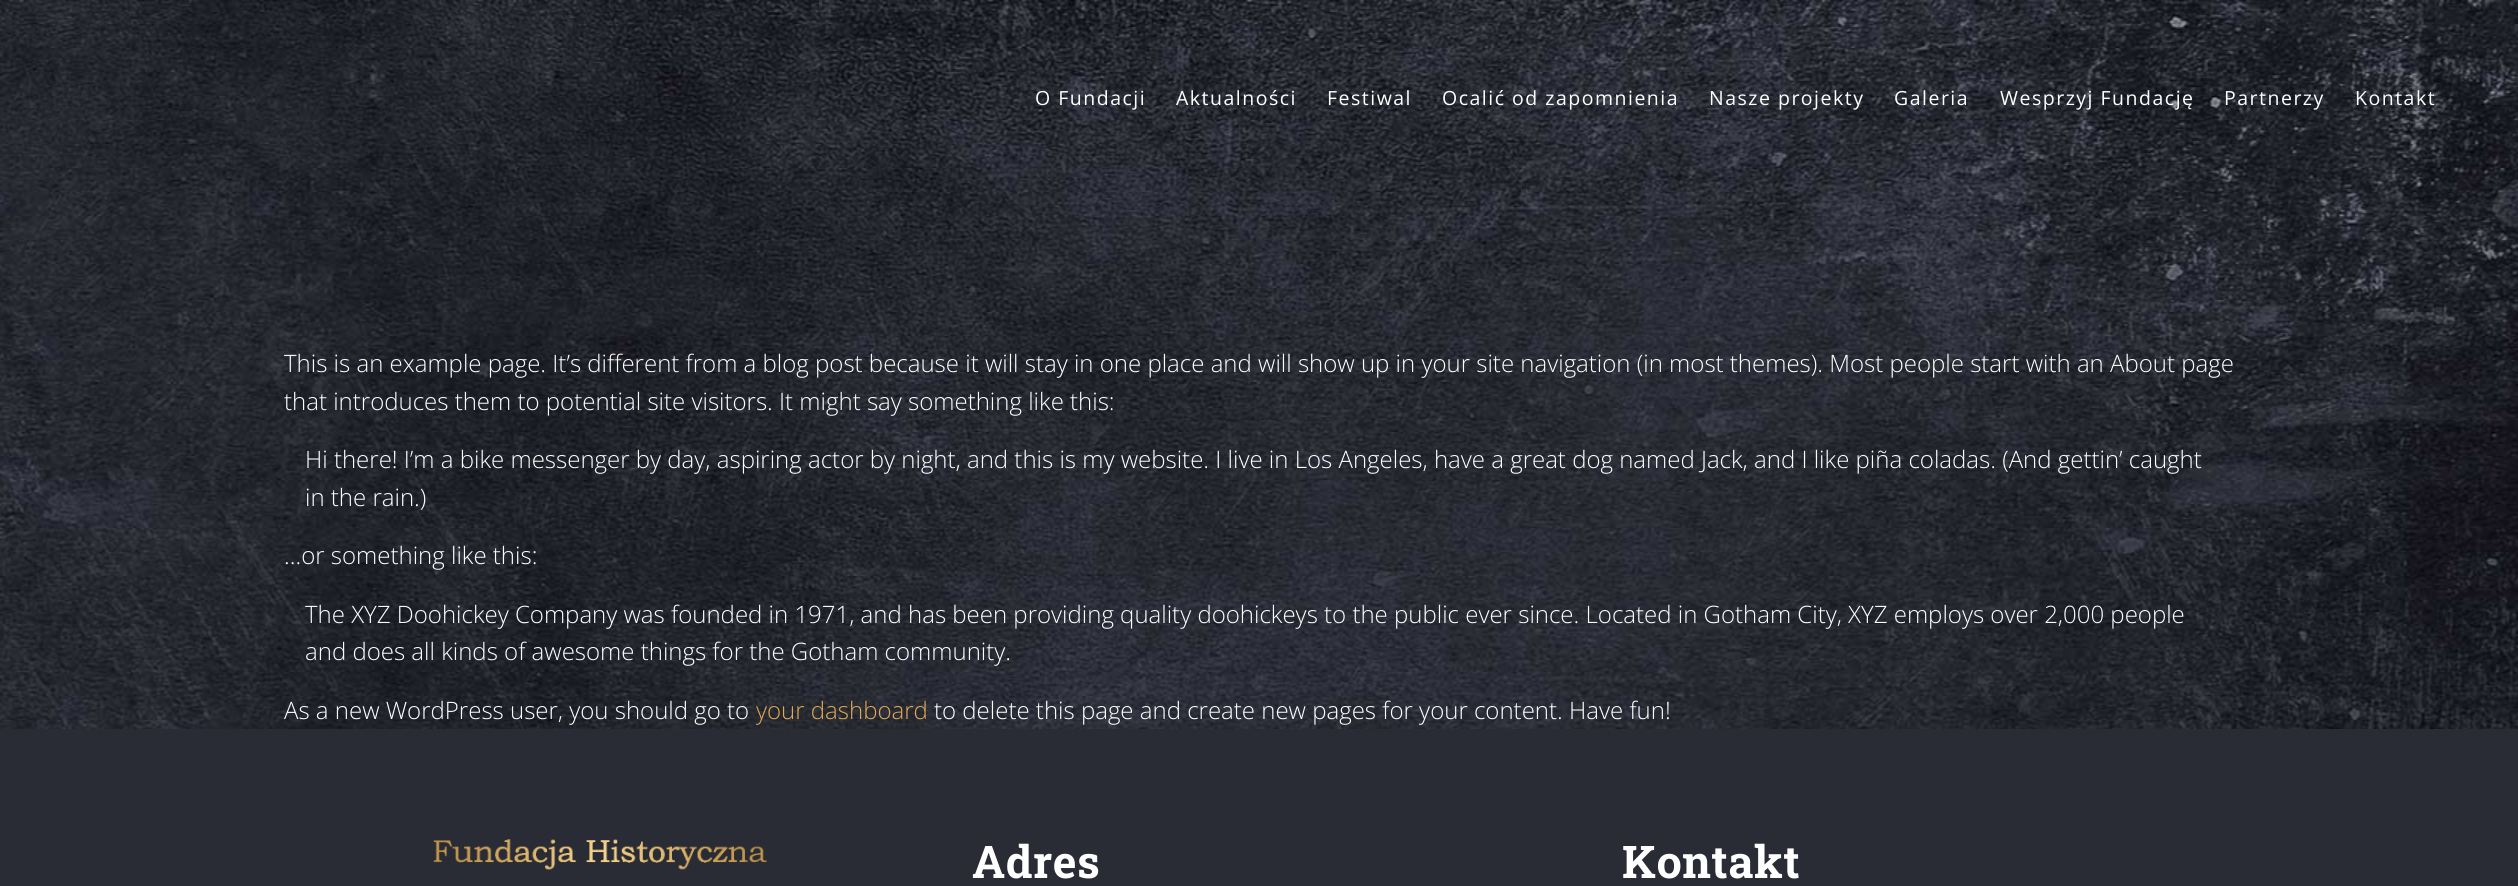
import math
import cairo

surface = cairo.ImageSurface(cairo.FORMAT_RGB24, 2518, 886)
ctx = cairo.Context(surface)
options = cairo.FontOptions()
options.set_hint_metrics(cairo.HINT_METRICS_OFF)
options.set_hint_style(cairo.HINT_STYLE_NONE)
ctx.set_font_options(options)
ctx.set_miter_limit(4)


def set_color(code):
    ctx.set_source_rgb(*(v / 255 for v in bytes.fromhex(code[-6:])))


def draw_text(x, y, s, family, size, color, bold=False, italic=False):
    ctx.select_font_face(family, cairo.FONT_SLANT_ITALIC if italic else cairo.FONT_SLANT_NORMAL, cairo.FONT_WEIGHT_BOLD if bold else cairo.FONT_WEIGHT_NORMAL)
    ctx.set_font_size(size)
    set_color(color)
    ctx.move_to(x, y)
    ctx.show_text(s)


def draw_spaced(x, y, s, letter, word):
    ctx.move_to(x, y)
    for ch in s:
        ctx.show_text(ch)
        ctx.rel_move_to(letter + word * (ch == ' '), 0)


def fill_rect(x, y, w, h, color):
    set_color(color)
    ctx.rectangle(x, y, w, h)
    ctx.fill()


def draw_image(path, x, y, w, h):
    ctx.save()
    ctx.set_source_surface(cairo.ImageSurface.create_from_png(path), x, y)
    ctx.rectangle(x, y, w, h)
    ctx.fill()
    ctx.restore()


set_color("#ffffff")
ctx.paint()
draw_image("assets/img1.png", 0, 0, 2518, 729)
ctx.select_font_face("Open Sans")
ctx.set_font_size(19.5)
set_color("#ffffff")
draw_spaced(1035, 105, "O Fundacji", 1.5, 0)
draw_spaced(1176, 105, "Aktualności", 1.5, 0)
draw_spaced(1327, 105, "Festiwal", 1.5, 0)
draw_spaced(1442, 105, "Ocalić od zapomnienia", 1.5, 0)
draw_spaced(1709, 105, "Nasze projekty", 1.5, 0)
draw_spaced(1894, 105, "Galeria", 1.5, 0)
draw_spaced(2000, 105, "Wesprzyj Fundację", 1.5, 0)
draw_spaced(2224, 105, "Partnerzy", 1.5, 0)
draw_spaced(2355, 105, "Kontakt", 1.5, 0)
draw_text(284, 372, "This is an example page. It’s different from a blog post because it will stay in one place and will show up in your site navigation (in most themes). Most people start with an About page", "Open Sans Light", 24, "#ffffff")
draw_text(284, 410, "that introduces them to potential site visitors. It might say something like this:", "Open Sans Light", 24, "#ffffff")
draw_text(305, 468, "Hi there! I’m a bike messenger by day, aspiring actor by night, and this is my website. I live in Los Angeles, have a great dog named Jack, and I like piña coladas. (And gettin’ caught", "Open Sans Light", 24, "#ffffff")
draw_text(305, 506, "in the rain.)", "Open Sans Light", 24, "#ffffff")
draw_text(284, 564, "…or something like this:", "Open Sans Light", 24, "#ffffff")
draw_text(305, 623, "The XYZ Doohickey Company was founded in 1971, and has been providing quality doohickeys to the public ever since. Located in Gotham City, XYZ employs over 2,000 people", "Open Sans Light", 24, "#ffffff")
draw_text(305, 660, "and does all kinds of awesome things for the Gotham community.", "Open Sans Light", 24, "#ffffff")
draw_text(284, 719, "As a new WordPress user, you should go to", "Open Sans Light", 24, "#ffffff")
draw_text(756, 719, "your dashboard", "Open Sans Light", 24, "#e1a856")
draw_text(934, 719, "to delete this page and create new pages for your content. Have fun!", "Open Sans Light", 24, "#ffffff")
fill_rect(0, 729, 2518, 157, "#292b35")
draw_image("assets/img2.png", 433, 839, 334, 31)
ctx.select_font_face("Roboto Slab", cairo.FONT_SLANT_NORMAL, cairo.FONT_WEIGHT_BOLD)
ctx.set_font_size(45)
set_color("#ffffff")
draw_spaced(972, 878, "Adres", 0.5, 0)
draw_spaced(1622, 878, "Kontakt", 0.5, 0)
surface.write_to_png("output.png")
